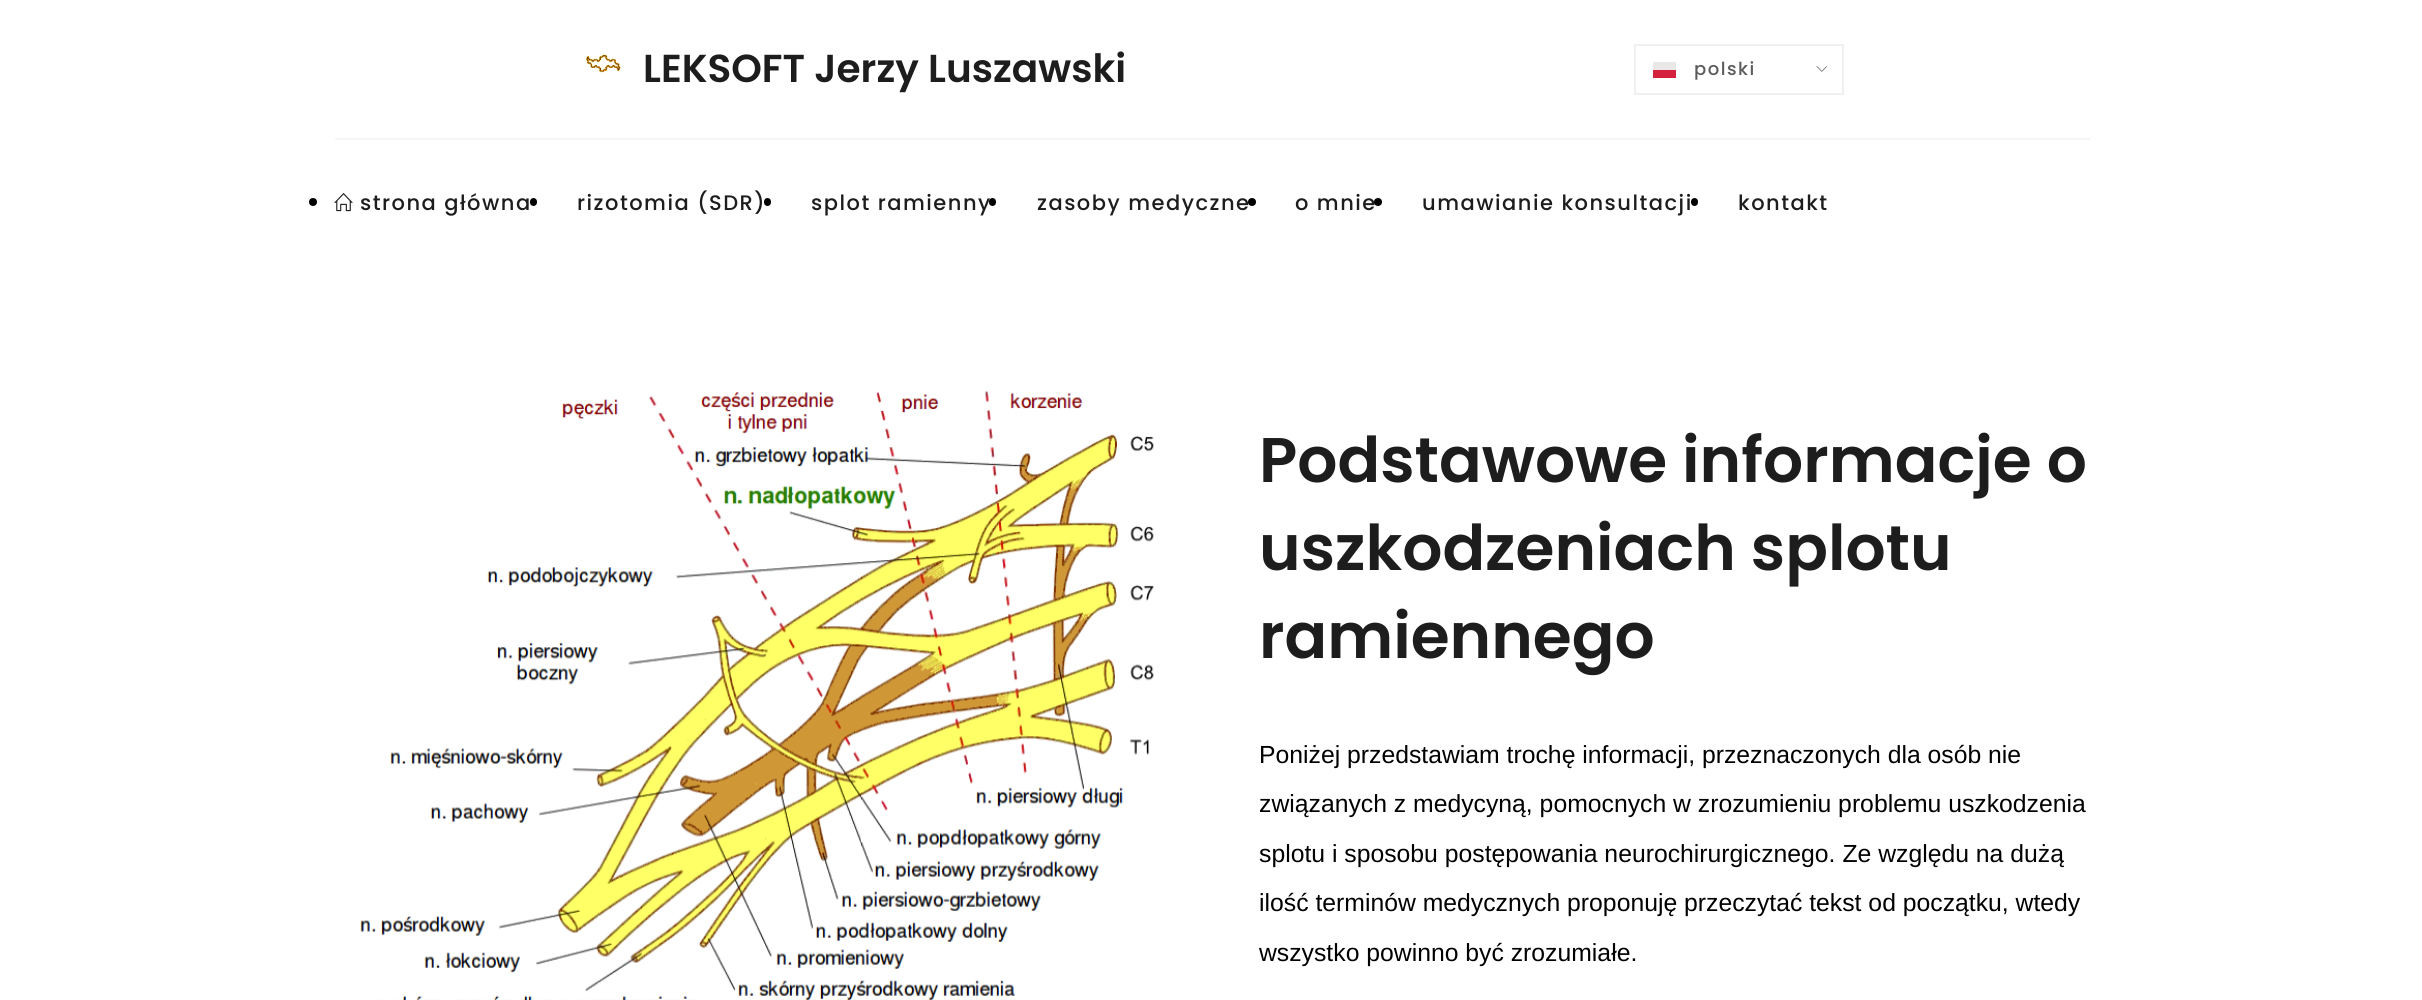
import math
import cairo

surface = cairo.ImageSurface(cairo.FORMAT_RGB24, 2422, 1000)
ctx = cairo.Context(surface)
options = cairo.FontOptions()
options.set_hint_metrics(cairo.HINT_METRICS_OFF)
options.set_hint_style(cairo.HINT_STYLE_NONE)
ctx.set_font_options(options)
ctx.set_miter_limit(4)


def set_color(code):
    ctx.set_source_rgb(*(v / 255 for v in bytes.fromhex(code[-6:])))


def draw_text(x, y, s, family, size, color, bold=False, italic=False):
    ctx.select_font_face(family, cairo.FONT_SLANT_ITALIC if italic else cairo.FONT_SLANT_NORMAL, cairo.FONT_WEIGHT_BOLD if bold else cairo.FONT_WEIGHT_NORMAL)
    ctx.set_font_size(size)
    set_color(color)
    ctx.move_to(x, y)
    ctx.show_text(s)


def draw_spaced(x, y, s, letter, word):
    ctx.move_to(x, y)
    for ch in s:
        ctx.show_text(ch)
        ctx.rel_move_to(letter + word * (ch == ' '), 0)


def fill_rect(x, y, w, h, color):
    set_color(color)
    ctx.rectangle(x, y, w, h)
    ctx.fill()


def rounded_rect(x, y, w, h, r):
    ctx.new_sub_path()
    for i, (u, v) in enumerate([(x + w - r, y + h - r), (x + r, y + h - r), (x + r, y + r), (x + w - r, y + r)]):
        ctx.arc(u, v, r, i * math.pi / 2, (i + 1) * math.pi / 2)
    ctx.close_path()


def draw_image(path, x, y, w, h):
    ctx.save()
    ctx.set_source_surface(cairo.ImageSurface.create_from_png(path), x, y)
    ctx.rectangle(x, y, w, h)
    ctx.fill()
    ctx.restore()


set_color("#ffffff")
ctx.paint()
draw_image("assets/img1.png", 585, 54, 36, 19)
draw_text(643, 82, "LEKSOFT Jerzy Luszawski", "Poppins SemiBold", 39, "#1d1d1d")
ctx.rectangle(1635, 45, 208, 49)
set_color("#f0f0f0")
ctx.stroke()
fill_rect(1653, 62, 23, 8, "#e9e8e7")
fill_rect(1653, 70, 23, 8, "#d4213d")
ctx.select_font_face("Poppins Medium")
ctx.set_font_size(18)
set_color("#5c5c5c")
draw_spaced(1694, 75, "polski", 1.5, 0)
draw_image("assets/img2.png", 1816, 66, 11, 6)
fill_rect(335, 138, 1755, 2, "#f5f5f5")
set_color("#000000")
ctx.arc(313, 202, 4, 0, 2 * math.pi)
ctx.fill()
draw_image("assets/img3.png", 334, 193, 19, 19)
ctx.set_font_size(21)
set_color("#1d1d1d")
draw_spaced(360, 210, "strona główna", 1.5, 0)
set_color("#000000")
rounded_rect(530, 198, 7, 8, 3.5)
ctx.fill()
set_color("#1d1d1d")
draw_spaced(577, 210, "rizotomia (SDR)", 1.5, 0)
set_color("#000000")
rounded_rect(764, 198, 7, 8, 3.5)
ctx.fill()
set_color("#1d1d1d")
draw_spaced(811, 210, "splot ramienny", 1.5, 0)
set_color("#000000")
rounded_rect(989, 198, 7, 8, 3.5)
ctx.fill()
set_color("#1d1d1d")
draw_spaced(1037, 210, "zasoby medyczne", 1.5, 0)
set_color("#000000")
ctx.new_path()
ctx.arc(1252, 202, 4, 0, 2 * math.pi)
ctx.fill()
set_color("#1d1d1d")
draw_spaced(1295, 210, "o mnie", 1.5, 0)
set_color("#000000")
ctx.new_path()
ctx.arc(1378, 202, 4, 0, 2 * math.pi)
ctx.fill()
set_color("#1d1d1d")
draw_spaced(1422, 210, "umawianie konsultacji", 1.5, 0)
set_color("#000000")
rounded_rect(1691, 198, 7, 8, 3.5)
ctx.fill()
set_color("#1d1d1d")
draw_spaced(1738, 210, "kontakt", 1.5, 0)
draw_image("assets/img4.png", 360, 391, 794, 609)
draw_text(1259, 482, "Podstawowe informacje o", "Poppins SemiBold", 63, "#1d1d1d")
draw_text(1259, 570, "uszkodzeniach splotu", "Poppins SemiBold", 63, "#1d1d1d")
draw_text(1259, 658, "ramiennego", "Poppins SemiBold", 63, "#1d1d1d")
draw_text(1259, 763, "Poniżej przedstawiam trochę informacji, przeznaczonych dla osób nie", "Liberation Sans", 24.75, "#000000")
draw_text(1259, 812, "związanych z medycyną, pomocnych w zrozumieniu problemu uszkodzenia", "Liberation Sans", 24.75, "#000000")
draw_text(1259, 862, "splotu i sposobu postępowania neurochirurgicznego. Ze względu na dużą", "Liberation Sans", 24.75, "#000000")
draw_text(1259, 911, "ilość terminów medycznych proponuję przeczytać tekst od początku, wtedy", "Liberation Sans", 24.75, "#000000")
draw_text(1259, 961, "wszystko powinno być zrozumiałe.", "Liberation Sans", 24.75, "#000000")
surface.write_to_png("output.png")
